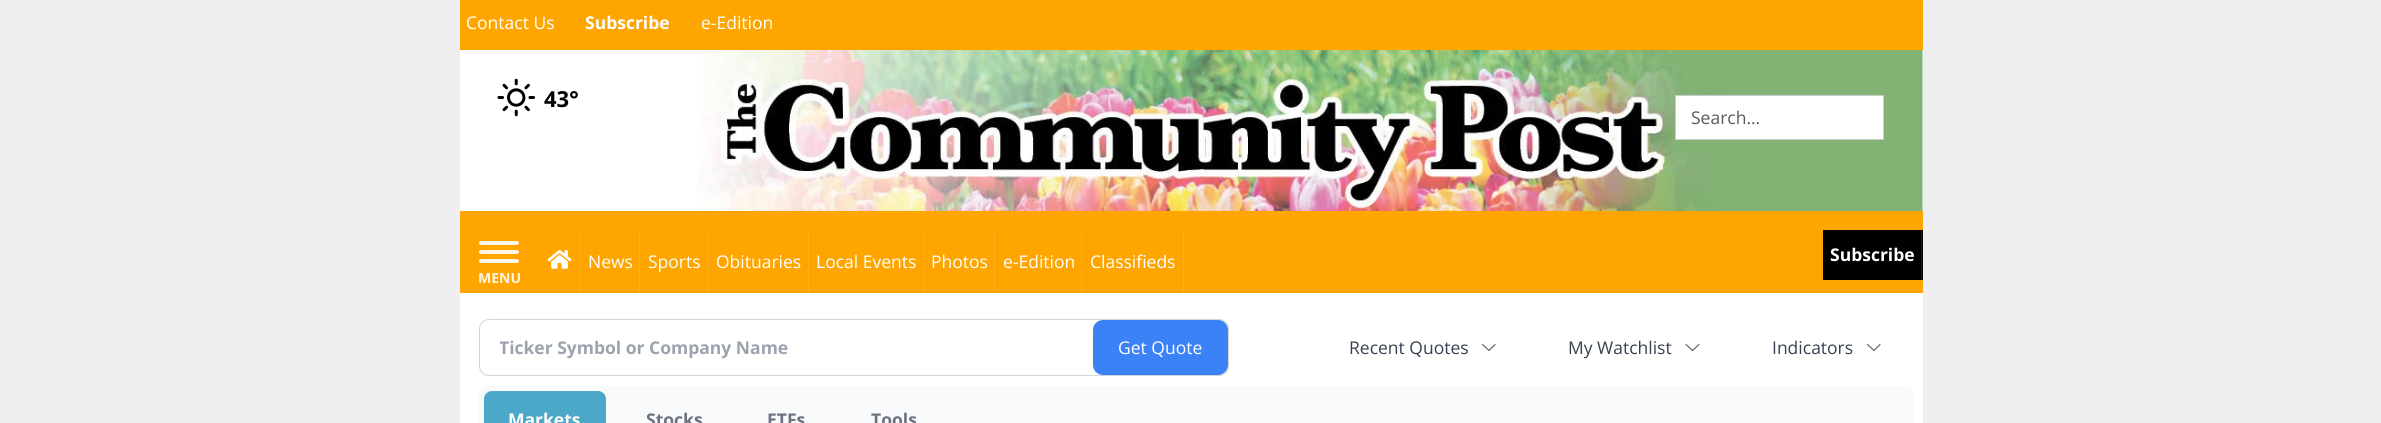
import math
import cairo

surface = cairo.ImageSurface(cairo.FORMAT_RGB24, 2381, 423)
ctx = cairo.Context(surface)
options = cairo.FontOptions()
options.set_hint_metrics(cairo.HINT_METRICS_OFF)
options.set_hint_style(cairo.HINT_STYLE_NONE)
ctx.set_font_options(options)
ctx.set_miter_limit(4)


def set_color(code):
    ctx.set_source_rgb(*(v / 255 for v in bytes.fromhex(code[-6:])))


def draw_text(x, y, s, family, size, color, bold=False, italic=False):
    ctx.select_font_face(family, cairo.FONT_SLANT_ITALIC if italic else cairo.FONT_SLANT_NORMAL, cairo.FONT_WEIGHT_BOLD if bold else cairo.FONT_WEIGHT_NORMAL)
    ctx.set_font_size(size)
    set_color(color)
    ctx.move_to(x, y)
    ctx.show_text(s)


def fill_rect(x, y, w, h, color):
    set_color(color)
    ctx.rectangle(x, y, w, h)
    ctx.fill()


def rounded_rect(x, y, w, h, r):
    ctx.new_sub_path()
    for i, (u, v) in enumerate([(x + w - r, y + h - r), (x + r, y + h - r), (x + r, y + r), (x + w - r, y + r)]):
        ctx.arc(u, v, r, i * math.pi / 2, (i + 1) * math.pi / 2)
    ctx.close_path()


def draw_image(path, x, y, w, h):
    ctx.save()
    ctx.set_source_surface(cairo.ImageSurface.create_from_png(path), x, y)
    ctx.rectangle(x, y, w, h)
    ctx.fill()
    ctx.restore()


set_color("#efefef")
ctx.paint()
fill_rect(460, 0, 1463, 50, "#ffa500")
draw_text(466, 29, "Contact Us", "Open Sans", 17.5, "#ffffff")
draw_text(585, 29, "Subscribe", "Open Sans", 17.5, "#ffffff", bold=True)
draw_text(701, 29, "e-Edition", "Open Sans", 17.5, "#ffffff")
fill_rect(460, 50, 1463, 161, "#ffffff")
draw_image("assets/img1.png", 697, 50, 1226, 161)
fill_rect(460, 211, 1463, 82, "#ffa500")
draw_image("assets/img2.png", 497, 78, 38, 39)
draw_text(544, 107, "43°", "Open Sans", 22, "#000000", bold=True)
set_color("#ffffff")
ctx.rectangle(1675.5, 95.5, 208, 44)
ctx.fill_preserve()
set_color("#cccccc")
ctx.set_line_width(1)
ctx.stroke()
draw_text(1691, 124, "Search...", "Open Sans", 17.5, "#595959")
fill_rect(580, 230, 1, 63, "#ffae1a")
draw_image("assets/img3.png", 547, 250, 25, 19)
fill_rect(639, 230, 1, 63, "#ffae1a")
draw_text(588, 268, "News", "Open Sans", 17.5, "#ffffff")
fill_rect(708, 230, 1, 63, "#ffae1a")
draw_text(648, 268, "Sports", "Open Sans", 17.5, "#ffffff")
fill_rect(808, 230, 1, 63, "#ffae1a")
draw_text(716, 268, "Obituaries", "Open Sans", 17.5, "#ffffff")
fill_rect(923, 230, 1, 63, "#ffae1a")
draw_text(816, 268, "Local Events", "Open Sans", 17.5, "#ffffff")
fill_rect(994, 230, 1, 63, "#ffae1a")
draw_text(931, 268, "Photos", "Open Sans", 17.5, "#ffffff")
fill_rect(1081, 230, 1, 63, "#ffae1a")
draw_text(1003, 268, "e-Edition", "Open Sans", 17.5, "#ffffff")
fill_rect(1183, 230, 1, 63, "#ffae1a")
draw_text(1090, 268, "Classifieds", "Open Sans", 17.5, "#ffffff")
fill_rect(1823, 230, 100, 50, "#000000")
fill_rect(1921, 230, 1, 50, "#1a1a1a")
draw_text(1830, 261, "Subscribe", "Open Sans", 17.5, "#ffffff", bold=True)
set_color("#fff6e6")
rounded_rect(479, 241, 40, 4, 2)
ctx.fill()
rounded_rect(479, 250, 40, 4, 2)
ctx.fill()
rounded_rect(479, 259, 40, 4, 2)
ctx.fill()
draw_text(478, 283, "MENU", "Open Sans", 14, "#fff6e6", bold=True)
fill_rect(460, 293, 1463, 130, "#ffffff")
rounded_rect(479.5, 319.5, 749, 56, 9.5)
set_color("#d1d5db")
ctx.stroke()
ctx.save()
ctx.rectangle(500, 336, 573, 24)
ctx.clip()
draw_text(499, 354, "Ticker Symbol or Company Name", "Open Sans", 17.5, "#9ca3af", bold=True)
ctx.restore()
set_color("#3b82f6")
rounded_rect(1093, 320, 135, 55, 10)
ctx.fill()
draw_text(1118, 354, "Get Quote", "Open Sans", 17.5, "#ffffff")
draw_text(1349, 354, "Recent Quotes", "Open Sans", 17.5, "#374151")
ctx.new_path()
ctx.move_to(1495, 344.5)
ctx.line_to(1489, 350.5)
ctx.line_to(1482.5, 344.5)
set_color("#666666")
ctx.set_line_width(1.2)
ctx.set_line_cap(cairo.LINE_CAP_ROUND)
ctx.set_line_join(cairo.LINE_JOIN_ROUND)
ctx.stroke()
draw_text(1568, 354, "My Watchlist", "Open Sans", 17.5, "#374151")
ctx.new_path()
ctx.move_to(1699, 344.5)
ctx.line_to(1692.5, 350.5)
ctx.line_to(1686, 344.5)
set_color("#666666")
ctx.stroke()
draw_text(1772, 354, "Indicators", "Open Sans", 17.5, "#374151")
ctx.new_path()
ctx.move_to(1880, 344.5)
ctx.line_to(1874, 350.5)
ctx.line_to(1867.5, 344.5)
set_color("#666666")
ctx.stroke()
set_color("#f8fafc")
rounded_rect(479, 386, 1435, 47, 10)
ctx.fill()
set_color("#4ca8c8")
rounded_rect(484, 391, 122, 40, 8)
ctx.fill()
draw_text(508, 426, "Markets", "Open Sans", 17.5, "#ffffff", bold=True)
draw_text(646, 426, "Stocks", "Open Sans", 17.5, "#6b7280", bold=True)
draw_text(767, 426, "ETFs", "Open Sans", 17.5, "#6b7280", bold=True)
draw_text(871, 426, "Tools", "Open Sans", 17.5, "#6b7280", bold=True)
surface.write_to_png("output.png")
